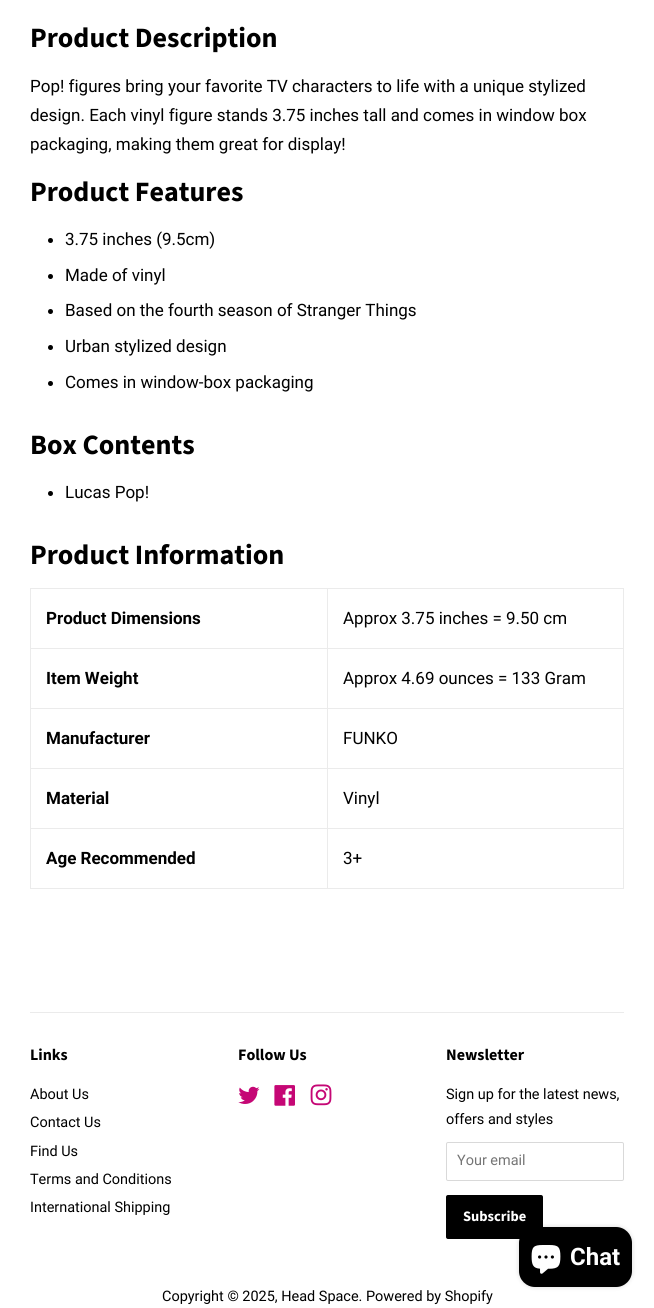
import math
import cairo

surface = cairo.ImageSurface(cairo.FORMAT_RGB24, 654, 1308)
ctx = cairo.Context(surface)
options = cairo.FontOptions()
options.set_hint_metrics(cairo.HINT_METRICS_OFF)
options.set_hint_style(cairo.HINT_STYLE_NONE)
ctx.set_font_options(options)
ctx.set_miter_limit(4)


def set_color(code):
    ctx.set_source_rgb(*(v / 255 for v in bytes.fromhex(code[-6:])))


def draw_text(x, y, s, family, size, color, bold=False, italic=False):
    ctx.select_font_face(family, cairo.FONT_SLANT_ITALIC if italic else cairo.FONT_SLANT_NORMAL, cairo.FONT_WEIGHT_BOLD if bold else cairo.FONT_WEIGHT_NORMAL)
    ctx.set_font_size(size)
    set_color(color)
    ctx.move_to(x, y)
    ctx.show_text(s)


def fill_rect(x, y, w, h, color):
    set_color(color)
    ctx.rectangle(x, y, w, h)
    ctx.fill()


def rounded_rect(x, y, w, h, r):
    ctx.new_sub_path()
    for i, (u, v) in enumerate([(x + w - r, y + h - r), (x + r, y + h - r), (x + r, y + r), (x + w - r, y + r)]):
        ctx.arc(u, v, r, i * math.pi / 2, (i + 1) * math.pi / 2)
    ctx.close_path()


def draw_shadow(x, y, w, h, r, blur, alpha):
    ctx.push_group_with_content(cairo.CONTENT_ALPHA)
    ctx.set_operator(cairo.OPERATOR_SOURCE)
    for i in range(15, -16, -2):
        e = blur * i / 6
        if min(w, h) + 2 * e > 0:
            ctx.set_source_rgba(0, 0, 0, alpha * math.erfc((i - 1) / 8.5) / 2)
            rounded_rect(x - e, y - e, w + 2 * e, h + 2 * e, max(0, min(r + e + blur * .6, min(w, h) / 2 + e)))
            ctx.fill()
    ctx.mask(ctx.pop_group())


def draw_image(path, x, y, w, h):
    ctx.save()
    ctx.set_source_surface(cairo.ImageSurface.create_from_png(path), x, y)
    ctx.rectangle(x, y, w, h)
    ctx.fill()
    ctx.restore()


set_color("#ffffff")
ctx.paint()
draw_text(30, 47, "Product Description", "Source Sans Pro", 28, "#000000", bold=True)
draw_text(30, 92, "Pop! figures bring your favorite TV characters to life with a unique stylized", "Roboto", 17, "#000000")
draw_text(30, 121, "design. Each vinyl figure stands 3.75 inches tall and comes in window box", "Roboto", 17, "#000000")
draw_text(30, 150, "packaging, making them great for display!", "Roboto", 17, "#000000")
draw_text(30, 201, "Product Features", "Source Sans Pro", 28, "#000000", bold=True)
ctx.new_path()
ctx.arc(50.5, 240.5, 2.5, 0, 2 * math.pi)
ctx.fill()
draw_text(65, 245, "3.75 inches (9.5cm)", "Roboto", 17, "#000000")
ctx.new_path()
ctx.arc(50.5, 276.5, 2.5, 0, 2 * math.pi)
ctx.fill()
draw_text(65, 281, "Made of vinyl", "Roboto", 17, "#000000")
ctx.new_path()
ctx.arc(50.5, 311.5, 2.5, 0, 2 * math.pi)
ctx.fill()
draw_text(65, 316, "Based on the fourth season of Stranger Things", "Roboto", 17, "#000000")
ctx.new_path()
ctx.arc(50.5, 347.5, 2.5, 0, 2 * math.pi)
ctx.fill()
draw_text(65, 352, "Urban stylized design", "Roboto", 17, "#000000")
ctx.new_path()
ctx.arc(50.5, 383.5, 2.5, 0, 2 * math.pi)
ctx.fill()
draw_text(65, 388, "Comes in window-box packaging", "Roboto", 17, "#000000")
draw_text(30, 454, "Box Contents", "Source Sans Pro", 28, "#000000", bold=True)
ctx.new_path()
ctx.arc(50.5, 493.5, 2.5, 0, 2 * math.pi)
ctx.fill()
draw_text(65, 498, "Lucas Pop!", "Roboto", 17, "#000000")
draw_text(30, 564, "Product Information", "Source Sans Pro", 28, "#000000", bold=True)
fill_rect(327, 588, 297, 1, "#ebebeb")
fill_rect(327, 648, 297, 1, "#ebebeb")
fill_rect(327, 708, 297, 1, "#ebebeb")
fill_rect(327, 768, 297, 1, "#ebebeb")
fill_rect(327, 828, 297, 1, "#ebebeb")
fill_rect(623, 828, 1, 61, "#ebebeb")
fill_rect(327, 888, 297, 1, "#ebebeb")
fill_rect(327, 828, 1, 61, "#ebebeb")
fill_rect(30, 828, 298, 1, "#ebebeb")
fill_rect(327, 768, 1, 61, "#ebebeb")
fill_rect(30, 768, 298, 1, "#ebebeb")
fill_rect(327, 708, 1, 61, "#ebebeb")
fill_rect(30, 708, 298, 1, "#ebebeb")
fill_rect(327, 648, 1, 61, "#ebebeb")
fill_rect(30, 648, 298, 1, "#ebebeb")
fill_rect(327, 588, 1, 61, "#ebebeb")
fill_rect(30, 588, 298, 1, "#ebebeb")
fill_rect(30, 888, 298, 1, "#ebebeb")
fill_rect(30, 828, 1, 61, "#ebebeb")
fill_rect(30, 768, 1, 61, "#ebebeb")
fill_rect(30, 708, 1, 61, "#ebebeb")
fill_rect(30, 648, 1, 61, "#ebebeb")
fill_rect(30, 588, 1, 61, "#ebebeb")
draw_text(46, 624, "Product Dimensions", "Roboto", 17, "#000000", bold=True)
fill_rect(623, 768, 1, 61, "#ebebeb")
fill_rect(623, 708, 1, 61, "#ebebeb")
fill_rect(623, 648, 1, 61, "#ebebeb")
fill_rect(623, 588, 1, 61, "#ebebeb")
draw_text(343, 624, "Approx 3.75 inches = 9.50 cm", "Roboto", 17, "#000000")
draw_text(46, 684, "Item Weight", "Roboto", 17, "#000000", bold=True)
draw_text(343, 684, "Approx 4.69 ounces = 133 Gram", "Roboto", 17, "#000000")
draw_text(46, 744, "Manufacturer", "Roboto", 17, "#000000", bold=True)
draw_text(343, 744, "FUNKO", "Roboto", 17, "#000000")
draw_text(46, 804, "Material", "Roboto", 17, "#000000", bold=True)
draw_text(343, 804, "Vinyl", "Roboto", 17, "#000000")
draw_text(46, 864, "Age Recommended", "Roboto", 17, "#000000", bold=True)
draw_text(343, 864, "3+", "Roboto", 17, "#000000")
fill_rect(30, 1012, 594, 1, "#ebebeb")
draw_text(30, 1060, "Links", "Source Sans Pro", 16, "#000000", bold=True)
draw_text(30, 1099, "About Us", "Roboto", 14.45, "#000000")
draw_text(30, 1127, "Contact Us", "Roboto", 14.45, "#000000")
draw_text(30, 1156, "Find Us", "Roboto", 14.45, "#000000")
draw_text(30, 1184, "Terms and Conditions", "Roboto", 14.45, "#000000")
draw_text(30, 1212, "International Shipping", "Roboto", 14.45, "#000000")
draw_text(238, 1060, "Follow Us", "Source Sans Pro", 16, "#000000", bold=True)
draw_image("assets/img1.png", 238, 1086, 22, 18)
draw_image("assets/img2.png", 274, 1085, 21, 21)
draw_image("assets/img3.png", 310, 1084, 22, 22)
draw_text(446, 1060, "Newsletter", "Source Sans Pro", 16, "#000000", bold=True)
draw_text(446, 1099, "Sign up for the latest news,", "Roboto", 14.45, "#000000")
draw_text(446, 1124, "offers and styles", "Roboto", 14.45, "#000000")
rounded_rect(446.5, 1142.5, 177, 38, 1.5)
set_color("#d9d9d9")
ctx.set_line_width(1)
ctx.stroke()
draw_text(457, 1165, "Your email", "Roboto", 14.45, "#757575")
set_color("#000000")
rounded_rect(446, 1195, 97, 44, 2)
ctx.fill()
draw_text(463, 1221, "Subscribe", "Source Sans Pro", 14.45, "#ffffff", bold=True)
draw_text(162, 1301, "Copyright © 2025, Head Space. Powered by Shopify", "Roboto", 14.45, "#000000")
set_color("#000000")
draw_shadow(519, 1227, 113, 60, 16, 2.5, 0.15)
set_color("#000000")
rounded_rect(519, 1227, 113, 60, 16)
ctx.fill()
draw_image("assets/img4.png", 531, 1245, 30, 29)
draw_text(570, 1265, "Chat", "Roboto", 24, "#ffffff", bold=True)
surface.write_to_png("output.png")
